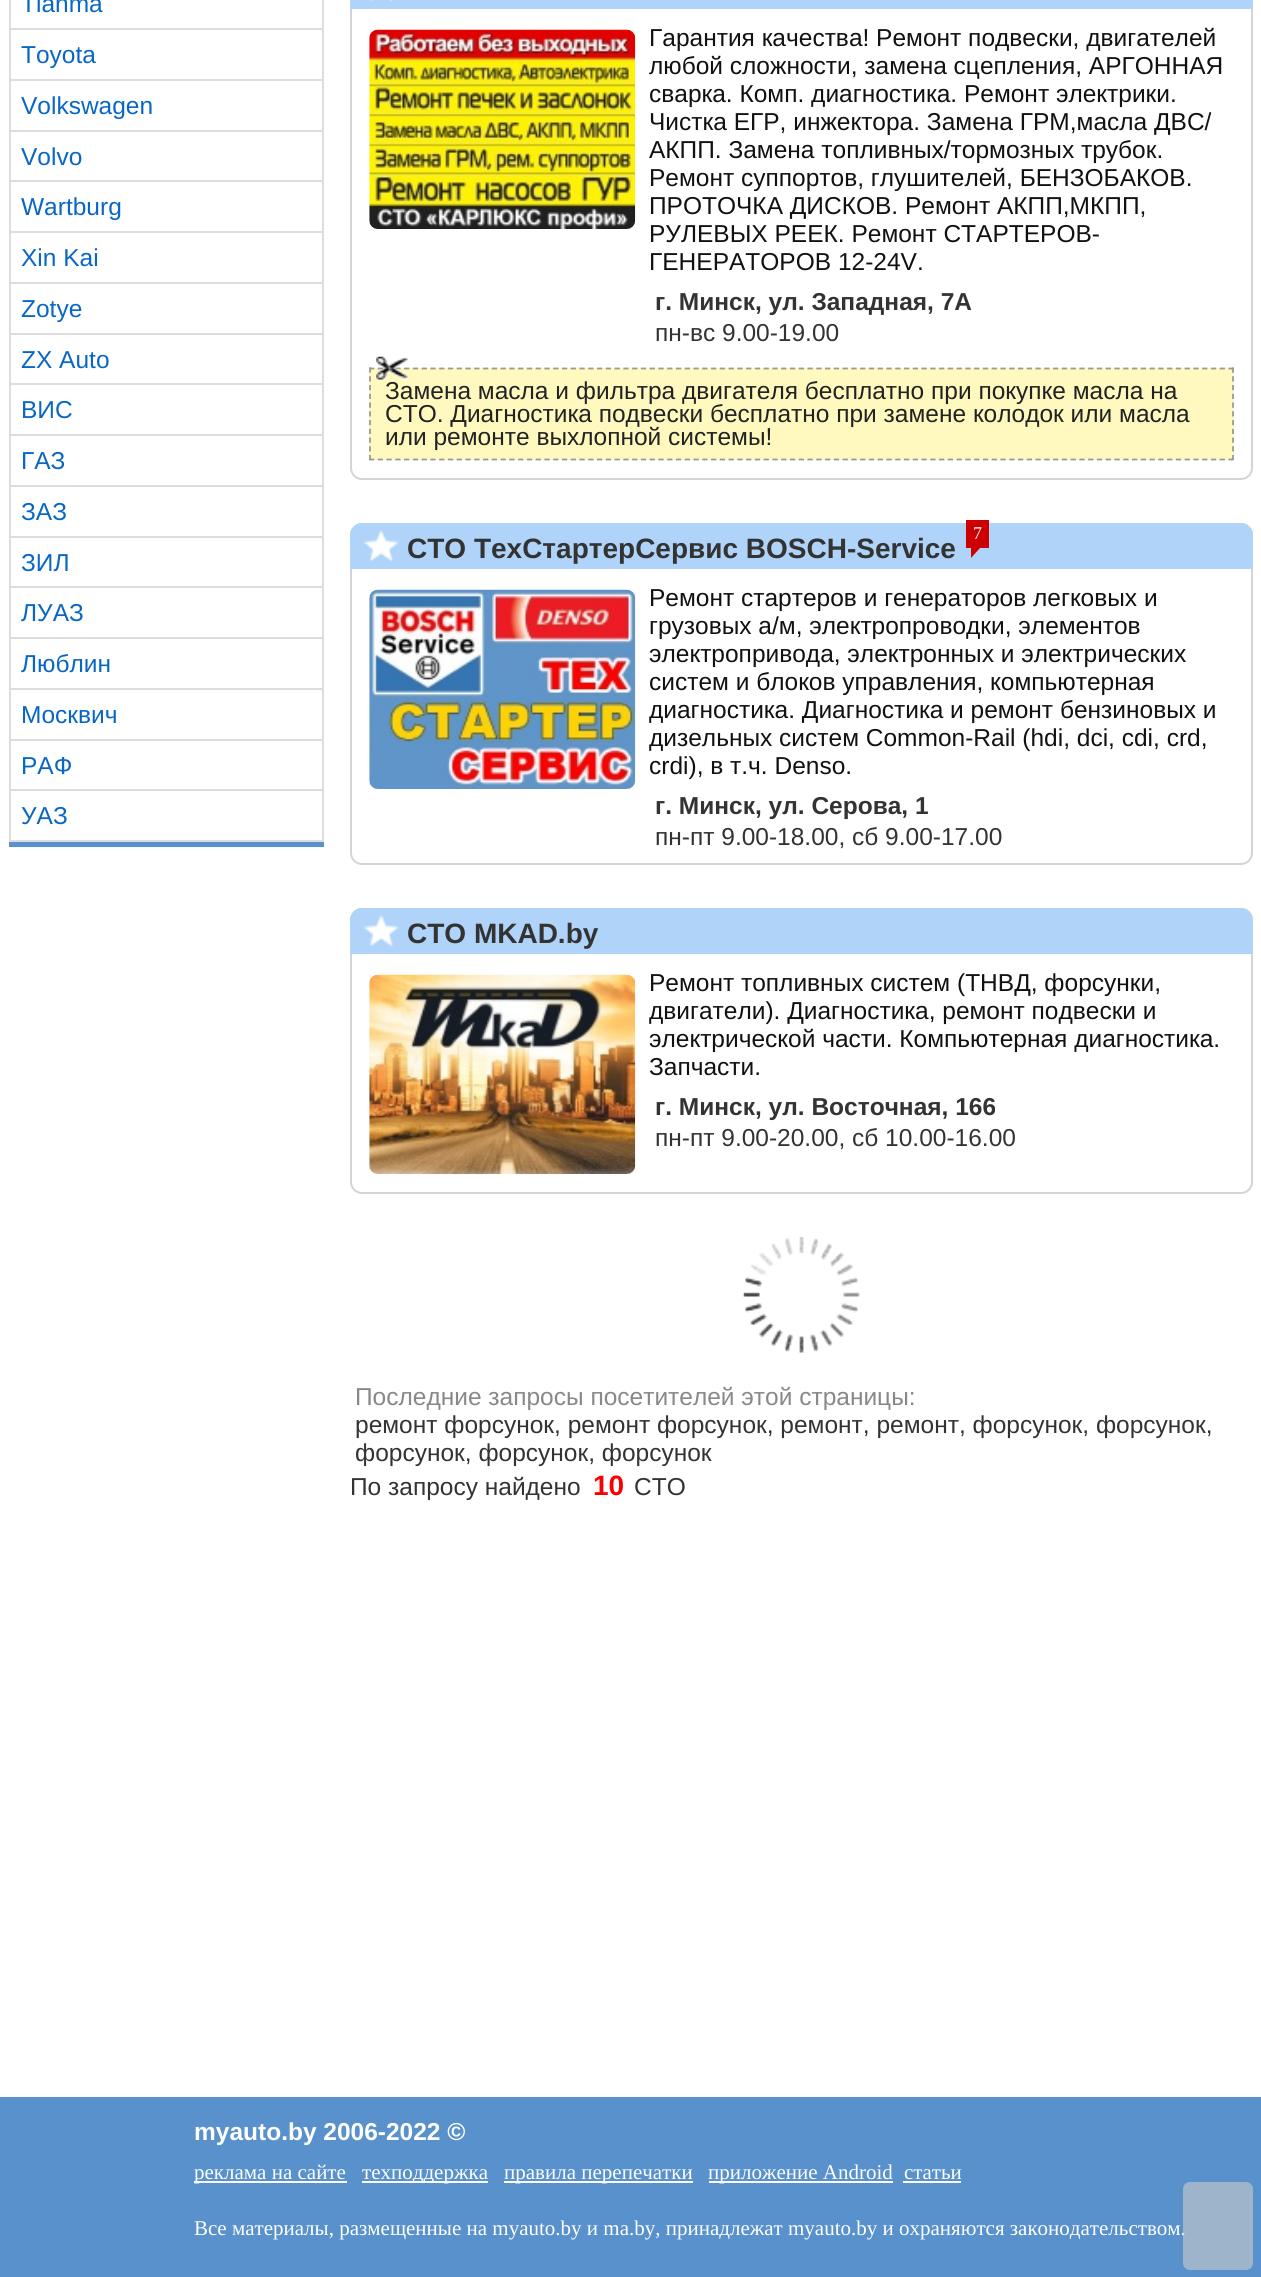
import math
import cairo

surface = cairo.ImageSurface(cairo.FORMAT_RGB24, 1261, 2277)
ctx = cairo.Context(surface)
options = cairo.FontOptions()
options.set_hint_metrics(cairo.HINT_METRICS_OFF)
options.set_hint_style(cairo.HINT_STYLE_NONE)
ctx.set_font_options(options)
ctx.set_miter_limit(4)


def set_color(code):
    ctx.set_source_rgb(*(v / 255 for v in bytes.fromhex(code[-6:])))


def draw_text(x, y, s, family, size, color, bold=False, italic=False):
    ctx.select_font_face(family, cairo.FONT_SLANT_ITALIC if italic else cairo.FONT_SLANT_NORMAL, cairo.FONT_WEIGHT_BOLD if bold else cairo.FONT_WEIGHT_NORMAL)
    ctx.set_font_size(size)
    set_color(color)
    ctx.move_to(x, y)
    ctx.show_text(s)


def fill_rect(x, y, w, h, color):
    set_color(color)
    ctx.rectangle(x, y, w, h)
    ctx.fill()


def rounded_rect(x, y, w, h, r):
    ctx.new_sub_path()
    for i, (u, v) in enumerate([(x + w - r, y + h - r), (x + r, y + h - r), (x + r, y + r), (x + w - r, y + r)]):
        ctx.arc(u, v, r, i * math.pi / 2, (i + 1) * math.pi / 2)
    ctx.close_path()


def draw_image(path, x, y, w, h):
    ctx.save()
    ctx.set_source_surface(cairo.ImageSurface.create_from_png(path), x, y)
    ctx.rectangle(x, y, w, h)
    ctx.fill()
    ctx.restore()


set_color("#ffffff")
ctx.paint()
draw_text(21, 12, "Tianma", "Liberation Sans", 24.5, "#0867c5")
fill_rect(9, 28, 315, 2, "#dddddd")
fill_rect(9, 79, 315, 2, "#dddddd")
fill_rect(9, 130, 315, 2, "#dddddd")
fill_rect(9, 180, 315, 2, "#dddddd")
fill_rect(9, 231, 315, 2, "#dddddd")
fill_rect(9, 282, 315, 2, "#dddddd")
fill_rect(9, 333, 315, 2, "#dddddd")
fill_rect(9, 383, 315, 2, "#dddddd")
fill_rect(9, 434, 315, 2, "#dddddd")
fill_rect(9, 485, 315, 2, "#dddddd")
fill_rect(9, 536, 315, 2, "#dddddd")
fill_rect(9, 586, 315, 2, "#dddddd")
fill_rect(9, 637, 315, 2, "#dddddd")
fill_rect(9, 688, 315, 2, "#dddddd")
fill_rect(9, 739, 315, 2, "#dddddd")
fill_rect(9, 789, 315, 2, "#dddddd")
fill_rect(322, 789, 2, 53, "#dddddd")
fill_rect(322, 739, 2, 52, "#dddddd")
fill_rect(322, 688, 2, 52, "#dddddd")
fill_rect(322, 637, 2, 53, "#dddddd")
fill_rect(322, 586, 2, 53, "#dddddd")
fill_rect(322, 536, 2, 52, "#dddddd")
fill_rect(322, 485, 2, 52, "#dddddd")
fill_rect(322, 434, 2, 53, "#dddddd")
fill_rect(322, 383, 2, 53, "#dddddd")
fill_rect(322, 333, 2, 52, "#dddddd")
fill_rect(322, 282, 2, 52, "#dddddd")
fill_rect(322, 231, 2, 53, "#dddddd")
fill_rect(322, 180, 2, 53, "#dddddd")
fill_rect(322, 130, 2, 52, "#dddddd")
fill_rect(322, 79, 2, 52, "#dddddd")
fill_rect(322, 0, 2, 81, "#dddddd")
fill_rect(9, 840, 315, 2, "#dddddd")
fill_rect(9, 789, 2, 53, "#dddddd")
fill_rect(9, 739, 2, 52, "#dddddd")
fill_rect(9, 688, 2, 52, "#dddddd")
fill_rect(9, 637, 2, 53, "#dddddd")
fill_rect(9, 586, 2, 53, "#dddddd")
fill_rect(9, 536, 2, 52, "#dddddd")
fill_rect(9, 485, 2, 52, "#dddddd")
fill_rect(9, 434, 2, 53, "#dddddd")
fill_rect(9, 383, 2, 53, "#dddddd")
fill_rect(9, 333, 2, 52, "#dddddd")
fill_rect(9, 282, 2, 52, "#dddddd")
fill_rect(9, 231, 2, 53, "#dddddd")
fill_rect(9, 180, 2, 53, "#dddddd")
fill_rect(9, 130, 2, 52, "#dddddd")
fill_rect(9, 79, 2, 52, "#dddddd")
fill_rect(9, 0, 2, 81, "#dddddd")
draw_text(21, 63, "Toyota", "Liberation Sans", 24.5, "#0867c5")
draw_text(21, 114, "Volkswagen", "Liberation Sans", 24.5, "#0867c5")
draw_text(21, 165, "Volvo", "Liberation Sans", 24.5, "#0867c5")
draw_text(21, 215, "Wartburg", "Liberation Sans", 24.5, "#0867c5")
draw_text(21, 266, "Xin Kai", "Liberation Sans", 24.5, "#0867c5")
draw_text(21, 317, "Zotye", "Liberation Sans", 24.5, "#0867c5")
draw_text(21, 368, "ZX Auto", "Liberation Sans", 24.5, "#0867c5")
draw_text(21, 418, "ВИС", "Liberation Sans", 24.5, "#0867c5")
draw_text(21, 469, "ГАЗ", "Liberation Sans", 24.5, "#0867c5")
draw_text(21, 520, "ЗАЗ", "Liberation Sans", 24.5, "#0867c5")
draw_text(21, 571, "ЗИЛ", "Liberation Sans", 24.5, "#0867c5")
draw_text(21, 621, "ЛУАЗ", "Liberation Sans", 24.5, "#0867c5")
draw_text(21, 672, "Люблин", "Liberation Sans", 24.5, "#0867c5")
draw_text(21, 723, "Москвич", "Liberation Sans", 24.5, "#0867c5")
draw_text(21, 774, "РАФ", "Liberation Sans", 24.5, "#0867c5")
draw_text(21, 824, "УАЗ", "Liberation Sans", 24.5, "#0867c5")
fill_rect(9, 842, 315, 5, "#5891cb")
rounded_rect(351, -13, 901, 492, 11)
set_color("#d4d4d4")
ctx.stroke()
fill_rect(350, 0, 903, 9, "#afd3f9")
draw_image("assets/img1.png", 369, 0, 24, 2)
draw_text(649, 46, "Гарантия качества! Ремонт подвески, двигателей", "Liberation Sans", 24.5, "#111111")
draw_text(649, 74, "любой сложности, замена сцепления, АРГОННАЯ", "Liberation Sans", 24.5, "#111111")
draw_text(649, 102, "сварка. Комп. диагностика. Ремонт электрики.", "Liberation Sans", 24.5, "#111111")
draw_text(649, 130, "Чистка ЕГР, инжектора. Замена ГРМ,масла ДВС/", "Liberation Sans", 24.5, "#111111")
draw_text(649, 158, "АКПП. Замена топливных/тормозных трубок.", "Liberation Sans", 24.5, "#111111")
draw_text(649, 186, "Ремонт суппортов, глушителей, БЕНЗОБАКОВ.", "Liberation Sans", 24.5, "#111111")
draw_text(649, 214, "ПРОТОЧКА ДИСКОВ. Ремонт АКПП,МКПП,", "Liberation Sans", 24.5, "#111111")
draw_text(649, 242, "РУЛЕВЫХ РЕЕК. Ремонт СТАРТЕРОВ-", "Liberation Sans", 24.5, "#111111")
draw_text(649, 270, "ГЕНЕРАТОРОВ 12-24V.", "Liberation Sans", 24.5, "#111111")
draw_text(655, 310, "г. Минск, ул. Западная, 7А", "Liberation Sans", 24.5, "#333333", bold=True)
draw_text(655, 341, "пн-вс 9.00-19.00", "Liberation Sans", 24.5, "#333333")
fill_rect(369, 368, 865, 92, "#fff9bf")
ctx.new_path()
ctx.move_to(369, 368.5)
ctx.line_to(1234, 368.5)
set_color("#999999")
ctx.set_line_width(1.8)
ctx.set_dash([5.25, 3.52])
ctx.stroke()
ctx.new_path()
ctx.move_to(1233, 367.5)
ctx.line_to(1233, 460)
ctx.set_dash([5.25, 3.5])
ctx.stroke()
ctx.new_path()
ctx.move_to(369, 459.5)
ctx.line_to(1234, 459.5)
ctx.set_dash([5.25, 3.52])
ctx.stroke()
ctx.new_path()
ctx.move_to(370, 367.5)
ctx.line_to(370, 460)
ctx.set_dash([5.25, 3.5])
ctx.stroke()
draw_image("assets/img2.png", 376, 356, 32, 24)
draw_text(385, 399, "Замена масла и фильтра двигателя бесплатно при покупке масла на", "Liberation Sans", 24.5, "#222222")
draw_text(385, 422, "СТО. Диагностика подвески бесплатно при замене колодок или масла", "Liberation Sans", 24.5, "#222222")
draw_text(385, 445, "или ремонте выхлопной системы!", "Liberation Sans", 24.5, "#222222")
draw_image("assets/img3.png", 369, 29, 267, 200)
rounded_rect(351, 524, 901, 340, 11)
set_color("#d4d4d4")
ctx.set_line_width(2)
ctx.set_dash([])
ctx.stroke()
set_color("#afd3f9")
ctx.new_path()
ctx.move_to(362, 523)
ctx.line_to(1241, 523)
ctx.curve_to(1247.5, 523, 1253, 528.5, 1253, 535)
ctx.line_to(1253, 569)
ctx.line_to(350, 569)
ctx.line_to(350, 535)
ctx.curve_to(350, 528.5, 355.5, 523, 362, 523)
ctx.close_path()
ctx.fill()
draw_image("assets/img4.png", 363, 530, 36, 32)
draw_text(407, 558, "СТО ТехСтартерСервис BOSCH-Service", "Liberation Sans", 28, "#333333", bold=True)
set_color("#cc0000")
ctx.new_path()
ctx.move_to(971, 558)
ctx.line_to(971, 534)
ctx.line_to(980, 534)
ctx.line_to(980, 548)
ctx.close_path()
ctx.fill()
fill_rect(966, 520, 23, 28, "#cc0000")
draw_text(973, 539, "7", "Liberation Serif", 18, "#ffffff")
draw_image("assets/img5.png", 369, 589, 267, 200)
draw_text(649, 606, "Ремонт стартеров и генераторов легковых и", "Liberation Sans", 24.5, "#111111")
draw_text(649, 634, "грузовых а/м, электропроводки, элементов", "Liberation Sans", 24.5, "#111111")
draw_text(649, 662, "электропривода, электронных и электрических", "Liberation Sans", 24.5, "#111111")
draw_text(649, 690, "систем и блоков управления, компьютерная", "Liberation Sans", 24.5, "#111111")
draw_text(649, 718, "диагностика. Диагностика и ремонт бензиновых и", "Liberation Sans", 24.5, "#111111")
draw_text(649, 746, "дизельных систем Common-Rail (hdi, dci, cdi, crd,", "Liberation Sans", 24.5, "#111111")
draw_text(649, 774, "crdi), в т.ч. Denso.", "Liberation Sans", 24.5, "#111111")
draw_text(655, 814, "г. Минск, ул. Серова, 1", "Liberation Sans", 24.5, "#333333", bold=True)
draw_text(655, 845, "пн-пт 9.00-18.00, сб 9.00-17.00", "Liberation Sans", 24.5, "#333333")
rounded_rect(351, 909, 901, 284, 11)
set_color("#d4d4d4")
ctx.stroke()
set_color("#afd3f9")
ctx.new_path()
ctx.move_to(362, 908)
ctx.line_to(1241, 908)
ctx.curve_to(1247.5, 908, 1253, 913.5, 1253, 920)
ctx.line_to(1253, 954)
ctx.line_to(350, 954)
ctx.line_to(350, 920)
ctx.curve_to(350, 913.5, 355.5, 908, 362, 908)
ctx.close_path()
ctx.fill()
draw_image("assets/img6.png", 363, 915, 36, 32)
draw_text(407, 943, "СТО MKAD.by", "Liberation Sans", 28, "#333333", bold=True)
draw_image("assets/img7.png", 369, 974, 267, 200)
draw_text(649, 991, "Ремонт топливных систем (ТНВД, форсунки,", "Liberation Sans", 24.5, "#111111")
draw_text(649, 1019, "двигатели). Диагностика, ремонт подвески и", "Liberation Sans", 24.5, "#111111")
draw_text(649, 1047, "электрической части. Компьютерная диагностика.", "Liberation Sans", 24.5, "#111111")
draw_text(649, 1075, "Запчасти.", "Liberation Sans", 24.5, "#111111")
draw_text(655, 1115, "г. Минск, ул. Восточная, 166", "Liberation Sans", 24.5, "#333333", bold=True)
draw_text(655, 1146, "пн-пт 9.00-20.00, сб 10.00-16.00", "Liberation Sans", 24.5, "#333333")
draw_image("assets/img8.png", 743, 1237, 117, 116)
draw_text(355, 1405, "Последние запросы посетителей этой страницы:", "Liberation Sans", 24.5, "#888888")
draw_text(355, 1433, "ремонт форсунок, ремонт форсунок, ремонт, ремонт, форсунок, форсунок,", "Liberation Sans", 24.5, "#333333")
draw_text(355, 1461, "форсунок, форсунок, форсунок", "Liberation Sans", 24.5, "#333333")
draw_text(350, 1495, "По запросу найдено", "Liberation Sans", 24.5, "#333333")
draw_text(593, 1495, "10", "Liberation Sans", 28, "#fb0000", bold=True)
draw_text(634, 1495, "СТО", "Liberation Sans", 24.5, "#333333")
fill_rect(0, 2097, 1261, 180, "#5891cb")
draw_text(194, 2140, "myauto.by 2006-2022 ©", "Liberation Sans", 24.5, "#ffffff", bold=True)
fill_rect(194, 2181, 153, 2, "#ffffff")
draw_text(194, 2179, "реклама на сайте", "Liberation Serif", 21, "#ffffff")
fill_rect(362, 2181, 126, 2, "#ffffff")
draw_text(362, 2179, "техподдержка", "Liberation Serif", 21, "#ffffff")
fill_rect(504, 2181, 189, 2, "#ffffff")
draw_text(504, 2179, "правила перепечатки", "Liberation Serif", 21, "#ffffff")
fill_rect(709, 2181, 184, 2, "#ffffff")
draw_text(708, 2179, "приложение Android", "Liberation Serif", 21, "#ffffff")
draw_text(904, 2179, "статьи", "Liberation Serif", 21, "#ffffff")
fill_rect(903, 2181, 58, 2, "#ffffff")
draw_text(194, 2235, "Все материалы, размещенные на myauto.by и ma.by, принадлежат myauto.by и охраняются законодательством.", "Liberation Serif", 21, "#ffffff")
ctx.set_source_rgba(0.8, 0.8, 0.8, 0.6)
rounded_rect(1183, 2182, 70, 88, 7)
ctx.fill()
surface.write_to_png("output.png")
